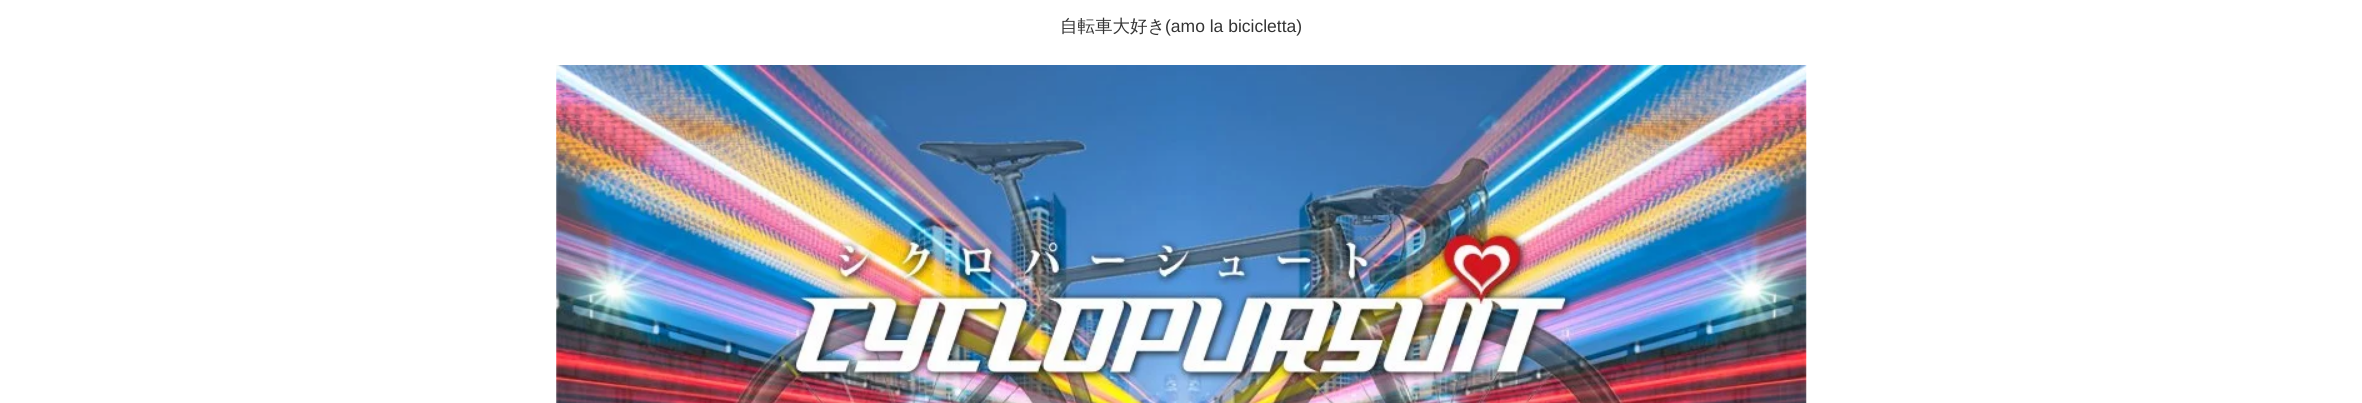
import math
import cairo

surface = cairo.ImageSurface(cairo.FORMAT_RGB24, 2362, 403)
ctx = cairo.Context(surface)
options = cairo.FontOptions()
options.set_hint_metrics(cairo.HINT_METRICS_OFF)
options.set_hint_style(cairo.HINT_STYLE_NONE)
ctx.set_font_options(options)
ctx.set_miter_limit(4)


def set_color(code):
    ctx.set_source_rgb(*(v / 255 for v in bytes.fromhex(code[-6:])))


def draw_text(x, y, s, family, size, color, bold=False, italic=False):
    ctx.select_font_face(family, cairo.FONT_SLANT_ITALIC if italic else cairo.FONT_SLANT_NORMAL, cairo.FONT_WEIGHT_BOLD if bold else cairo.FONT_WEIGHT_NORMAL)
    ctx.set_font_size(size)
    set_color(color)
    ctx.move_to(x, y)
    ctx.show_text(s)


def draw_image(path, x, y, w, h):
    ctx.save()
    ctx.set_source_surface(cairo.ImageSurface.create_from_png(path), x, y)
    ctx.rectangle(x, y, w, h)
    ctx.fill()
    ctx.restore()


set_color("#ffffff")
ctx.paint()
draw_text(1060, 32, "自転車大好き", "WenQuanYi Zen Hei Medium", 17.5, "#333333")
draw_text(1165, 32, "(amo la bicicletta)", "Liberation Sans", 17.5, "#333333")
draw_image("assets/img1.png", 556, 65, 1251, 338)
surface.write_to_png("output.png")
